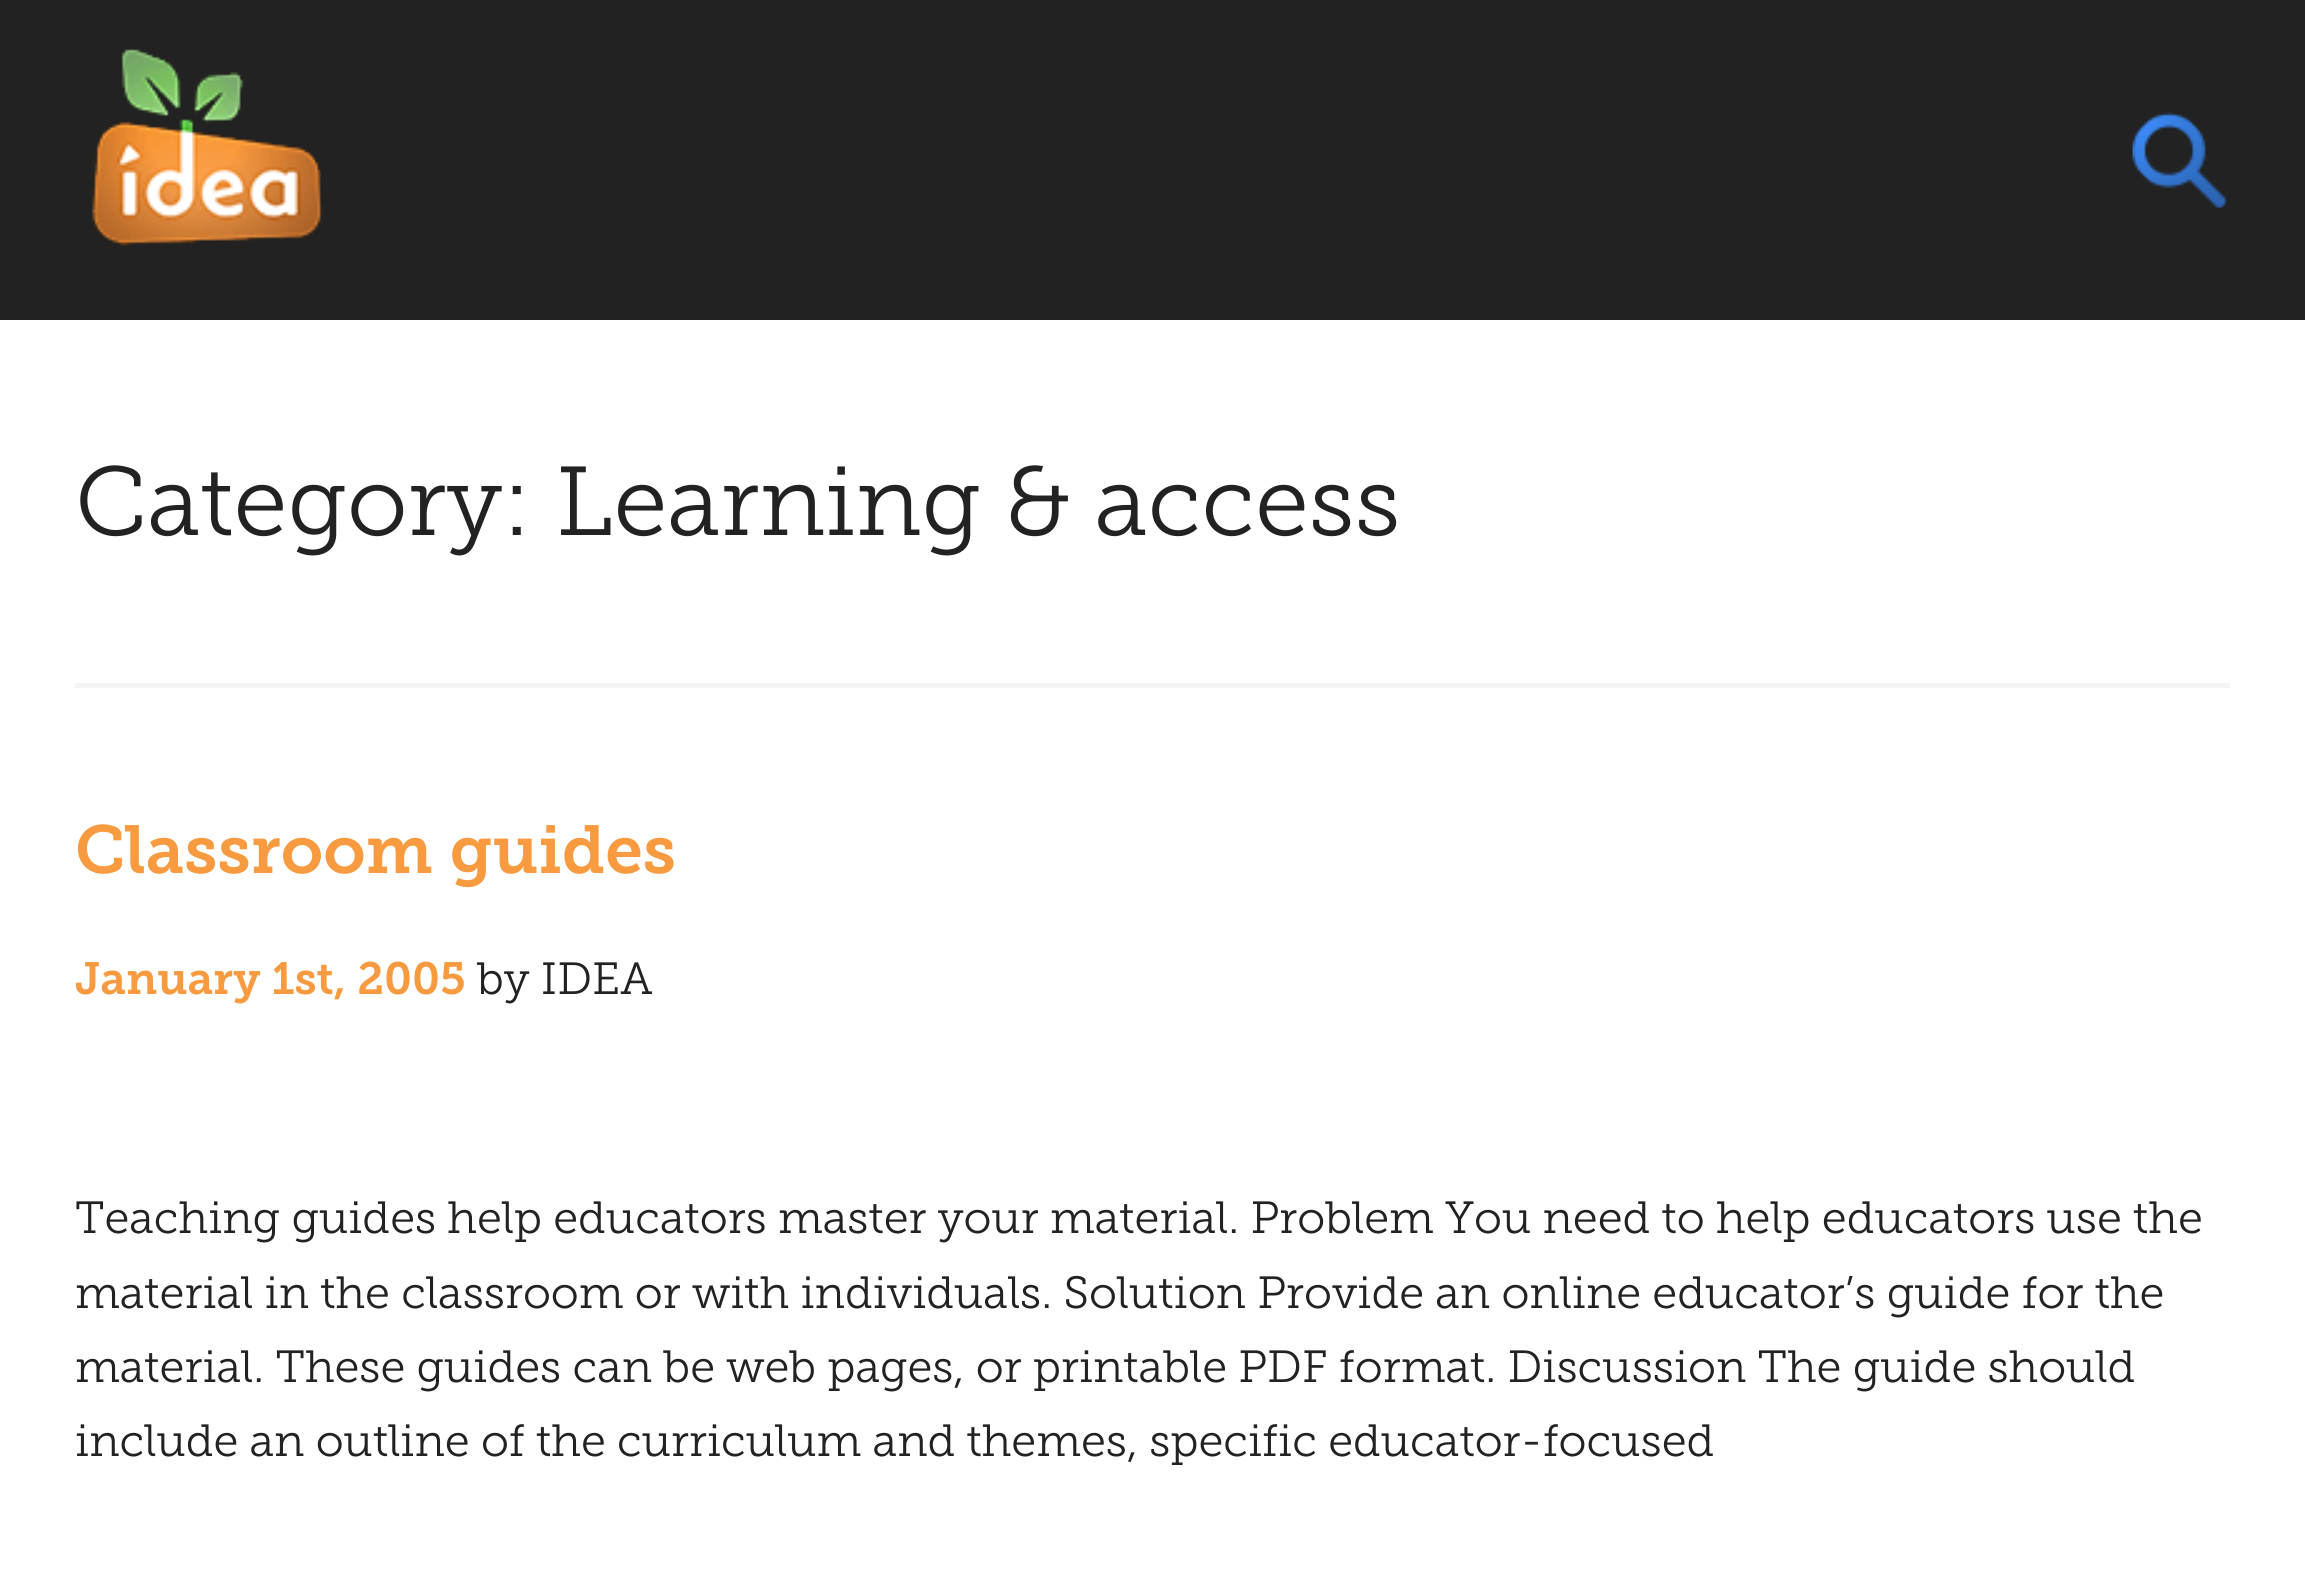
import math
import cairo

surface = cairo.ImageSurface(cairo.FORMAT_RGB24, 2305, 1578)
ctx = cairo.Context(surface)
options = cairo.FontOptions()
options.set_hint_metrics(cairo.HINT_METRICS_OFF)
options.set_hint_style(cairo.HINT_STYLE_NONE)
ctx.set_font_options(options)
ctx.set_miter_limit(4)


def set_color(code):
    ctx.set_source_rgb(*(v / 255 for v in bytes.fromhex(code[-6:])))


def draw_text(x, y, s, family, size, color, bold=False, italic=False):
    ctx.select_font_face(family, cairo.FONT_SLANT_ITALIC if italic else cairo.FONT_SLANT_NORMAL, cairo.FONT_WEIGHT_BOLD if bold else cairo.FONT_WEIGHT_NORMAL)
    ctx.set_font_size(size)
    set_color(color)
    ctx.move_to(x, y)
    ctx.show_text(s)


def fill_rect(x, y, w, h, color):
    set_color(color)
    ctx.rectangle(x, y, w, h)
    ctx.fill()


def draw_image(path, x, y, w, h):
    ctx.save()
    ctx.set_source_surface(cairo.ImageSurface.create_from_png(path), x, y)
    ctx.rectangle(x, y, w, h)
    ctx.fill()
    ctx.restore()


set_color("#222222")
ctx.paint()
draw_image("assets/img1.png", 91, 49, 232, 197)
draw_image("assets/img2.png", 2132, 112, 96, 96)
fill_rect(0, 320, 2305, 1258, "#ffffff")
fill_rect(75, 683, 2155, 5, "#f4f4f4")
draw_text(75, 535, "Category: Learning & access", "Museo Slab Light", 97.5, "#222222")
draw_text(75, 873, "Classroom guides", "Museo Slab SemiBold", 67.5, "#f89a3f")
draw_text(75, 994, "January 1st, 2005", "Museo Slab SemiBold", 45, "#f89a3f")
draw_text(477, 994, "by IDEA", "Museo Slab Light", 45, "#222222")
draw_text(75, 1233, "Teaching guides help educators master your material. Problem You need to help educators use the", "Museo Slab Light", 45, "#222222")
draw_text(75, 1308, "material in the classroom or with individuals. Solution Provide an online educator’s guide for the", "Museo Slab Light", 45, "#222222")
draw_text(75, 1382, "material. These guides can be web pages, or printable PDF format. Discussion The guide should", "Museo Slab Light", 45, "#222222")
draw_text(75, 1456, "include an outline of the curriculum and themes, specific educator-focused", "Museo Slab Light", 45, "#222222")
surface.write_to_png("output.png")
